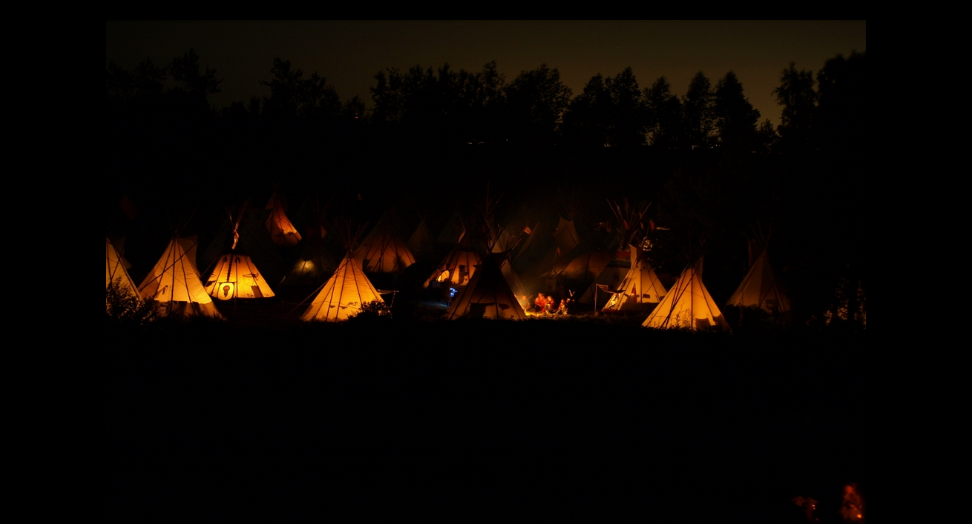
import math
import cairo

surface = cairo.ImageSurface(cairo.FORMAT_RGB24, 972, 524)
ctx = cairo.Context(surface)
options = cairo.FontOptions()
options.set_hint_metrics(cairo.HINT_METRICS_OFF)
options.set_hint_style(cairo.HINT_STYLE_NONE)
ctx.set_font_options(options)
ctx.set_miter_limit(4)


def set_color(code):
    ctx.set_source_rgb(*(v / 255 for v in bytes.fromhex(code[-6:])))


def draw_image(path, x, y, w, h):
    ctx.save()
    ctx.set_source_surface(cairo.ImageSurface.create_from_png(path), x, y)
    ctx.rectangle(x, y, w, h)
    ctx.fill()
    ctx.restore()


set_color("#000000")
ctx.paint()
draw_image("assets/img1.png", 106, 20, 760, 504)
surface.write_to_png("output.png")
